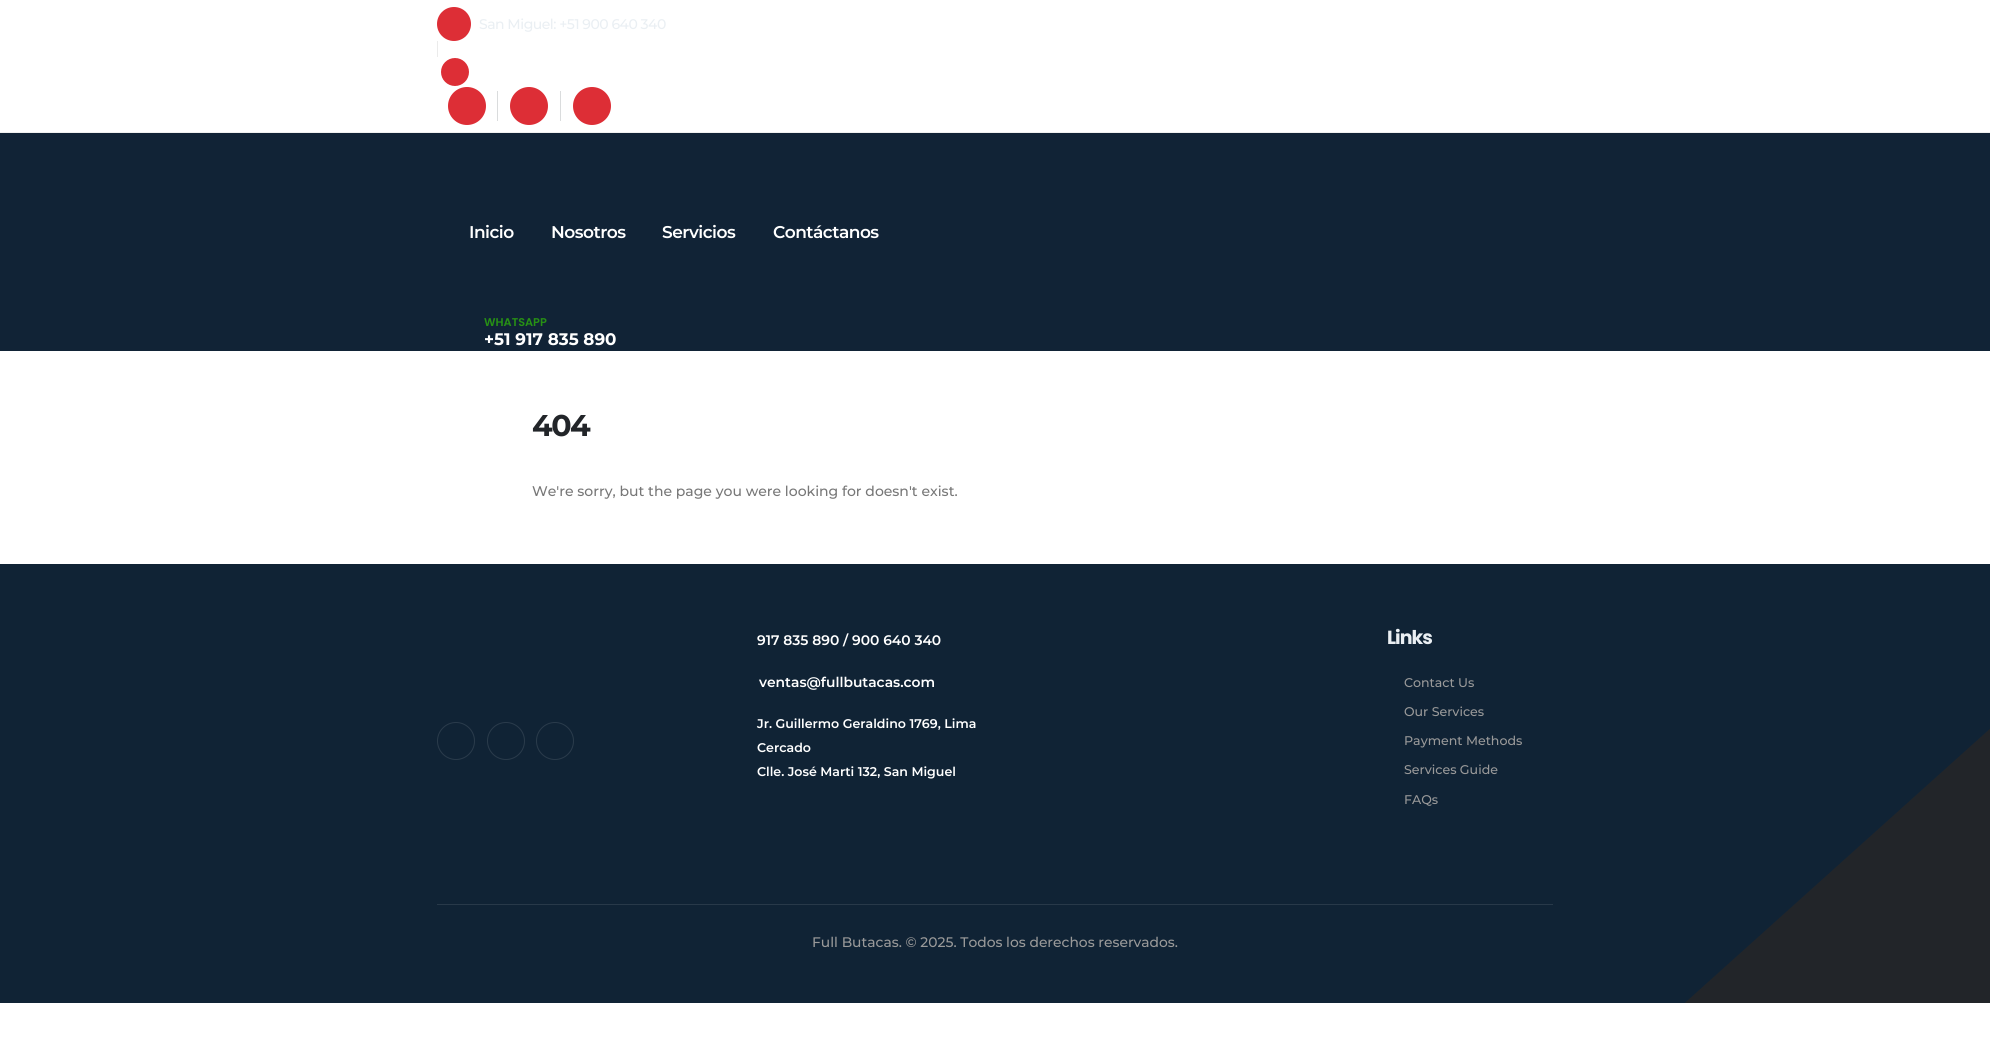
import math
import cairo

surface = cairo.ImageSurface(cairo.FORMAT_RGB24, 1990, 1052)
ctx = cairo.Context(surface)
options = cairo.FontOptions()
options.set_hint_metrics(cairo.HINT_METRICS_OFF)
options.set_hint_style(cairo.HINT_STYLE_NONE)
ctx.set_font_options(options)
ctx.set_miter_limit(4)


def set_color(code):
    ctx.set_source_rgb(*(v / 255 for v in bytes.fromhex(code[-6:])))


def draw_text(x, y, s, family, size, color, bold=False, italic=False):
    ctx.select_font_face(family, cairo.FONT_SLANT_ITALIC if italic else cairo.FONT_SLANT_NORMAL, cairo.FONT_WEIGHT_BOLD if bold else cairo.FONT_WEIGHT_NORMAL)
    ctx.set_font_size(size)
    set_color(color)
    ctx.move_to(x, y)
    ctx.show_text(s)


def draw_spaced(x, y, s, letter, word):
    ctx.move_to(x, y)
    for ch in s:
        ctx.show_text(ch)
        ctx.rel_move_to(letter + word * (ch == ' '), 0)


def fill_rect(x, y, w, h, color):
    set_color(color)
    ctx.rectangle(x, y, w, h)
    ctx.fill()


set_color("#ffffff")
ctx.paint()
fill_rect(0, 132, 1990, 1, "#f0f0f0")
set_color("#dd2e36")
ctx.arc(454, 24, 17, 0, 2 * math.pi)
ctx.fill()
ctx.select_font_face("Montserrat Medium")
ctx.set_font_size(14)
set_color("#eaeff3")
draw_spaced(479, 29, "San Miguel: +51 900 640 340", -0.5, 0)
fill_rect(437, 41, 1, 16, "#ebebeb")
set_color("#dd2e36")
ctx.new_path()
ctx.arc(455, 72, 14, 0, 2 * math.pi)
ctx.fill()
ctx.arc(467, 106, 19, 0, 2 * math.pi)
ctx.fill()
ctx.arc(529, 106, 19, 0, 2 * math.pi)
ctx.fill()
fill_rect(497, 91, 1, 30, "#dadcdd")
set_color("#dd2e36")
ctx.arc(592, 106, 19, 0, 2 * math.pi)
ctx.fill()
fill_rect(560, 91, 1, 30, "#dadcdd")
fill_rect(0, 133, 1990, 218, "#112336")
ctx.select_font_face("Montserrat SemiBold")
ctx.set_font_size(17)
set_color("#ffffff")
draw_spaced(469, 238, "Inicio", -0.5, 0)
draw_spaced(551, 238, "Nosotros", -0.5, 0)
draw_spaced(662, 238, "Servicios", -0.5, 0)
draw_spaced(773, 238, "Contáctanos", -0.5, 0)
draw_text(484, 326, "WHATSAPP", "Poppins SemiBold", 11.25, "#279114")
draw_text(484, 345, "+51 917 835 890", "Montserrat", 16.75, "#ffffff", bold=True)
ctx.set_font_size(30)
set_color("#222529")
draw_spaced(532, 436, "404", -1.5, 0)
draw_text(532, 496, "We're sorry, but the page you were looking for doesn't exist.", "Montserrat Medium", 14, "#777777")
fill_rect(0, 564, 1990, 439, "#102335")
ctx.new_path()
ctx.arc(456, 741, 18.5, 0, 2 * math.pi)
set_color("#2a3b4b")
ctx.set_line_width(1)
ctx.stroke()
ctx.arc(506, 741, 18.5, 0, 2 * math.pi)
ctx.stroke()
ctx.arc(555, 741, 18.5, 0, 2 * math.pi)
ctx.stroke()
draw_text(757, 645, "917 835 890 / 900 640 340", "Montserrat SemiBold", 13.85, "#ffffff")
draw_text(759, 687, "ventas@fullbutacas.com", "Montserrat SemiBold", 13.85, "#ffffff")
draw_text(757, 728, "Jr. Guillermo Geraldino 1769, Lima", "Montserrat SemiBold", 12.6, "#ffffff")
draw_text(757, 752, "Cercado", "Montserrat SemiBold", 12.6, "#ffffff")
draw_text(757, 776, "Clle. José Marti 132, San Miguel", "Montserrat SemiBold", 12.6, "#ffffff")
ctx.select_font_face("Poppins", cairo.FONT_SLANT_NORMAL, cairo.FONT_WEIGHT_BOLD)
ctx.set_font_size(19)
set_color("#eaeff3")
draw_spaced(1387, 644, "Links", -1, 0)
draw_text(1404, 687, "Contact Us", "Montserrat Medium", 12.6, "#999999")
draw_text(1404, 716, "Our Services", "Montserrat Medium", 12.6, "#999999")
draw_text(1404, 745, "Payment Methods", "Montserrat Medium", 12.6, "#999999")
draw_text(1404, 774, "Services Guide", "Montserrat Medium", 12.6, "#999999")
draw_text(1404, 804, "FAQs", "Montserrat Medium", 12.6, "#999999")
fill_rect(437, 904, 1116, 1, "#283949")
draw_text(812, 947, "Full Butacas. © 2025. Todos los derechos reservados.", "Montserrat Medium", 13.85, "#999999")
ctx.save()
ctx.rectangle(0, 564, 1990, 439)
ctx.clip()
set_color("#222529")
ctx.new_path()
ctx.move_to(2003, 717)
ctx.line_to(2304, 1051)
ctx.line_to(1969, 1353)
ctx.line_to(1668, 1018)
ctx.close_path()
ctx.fill()
ctx.restore()
surface.write_to_png("output.png")
